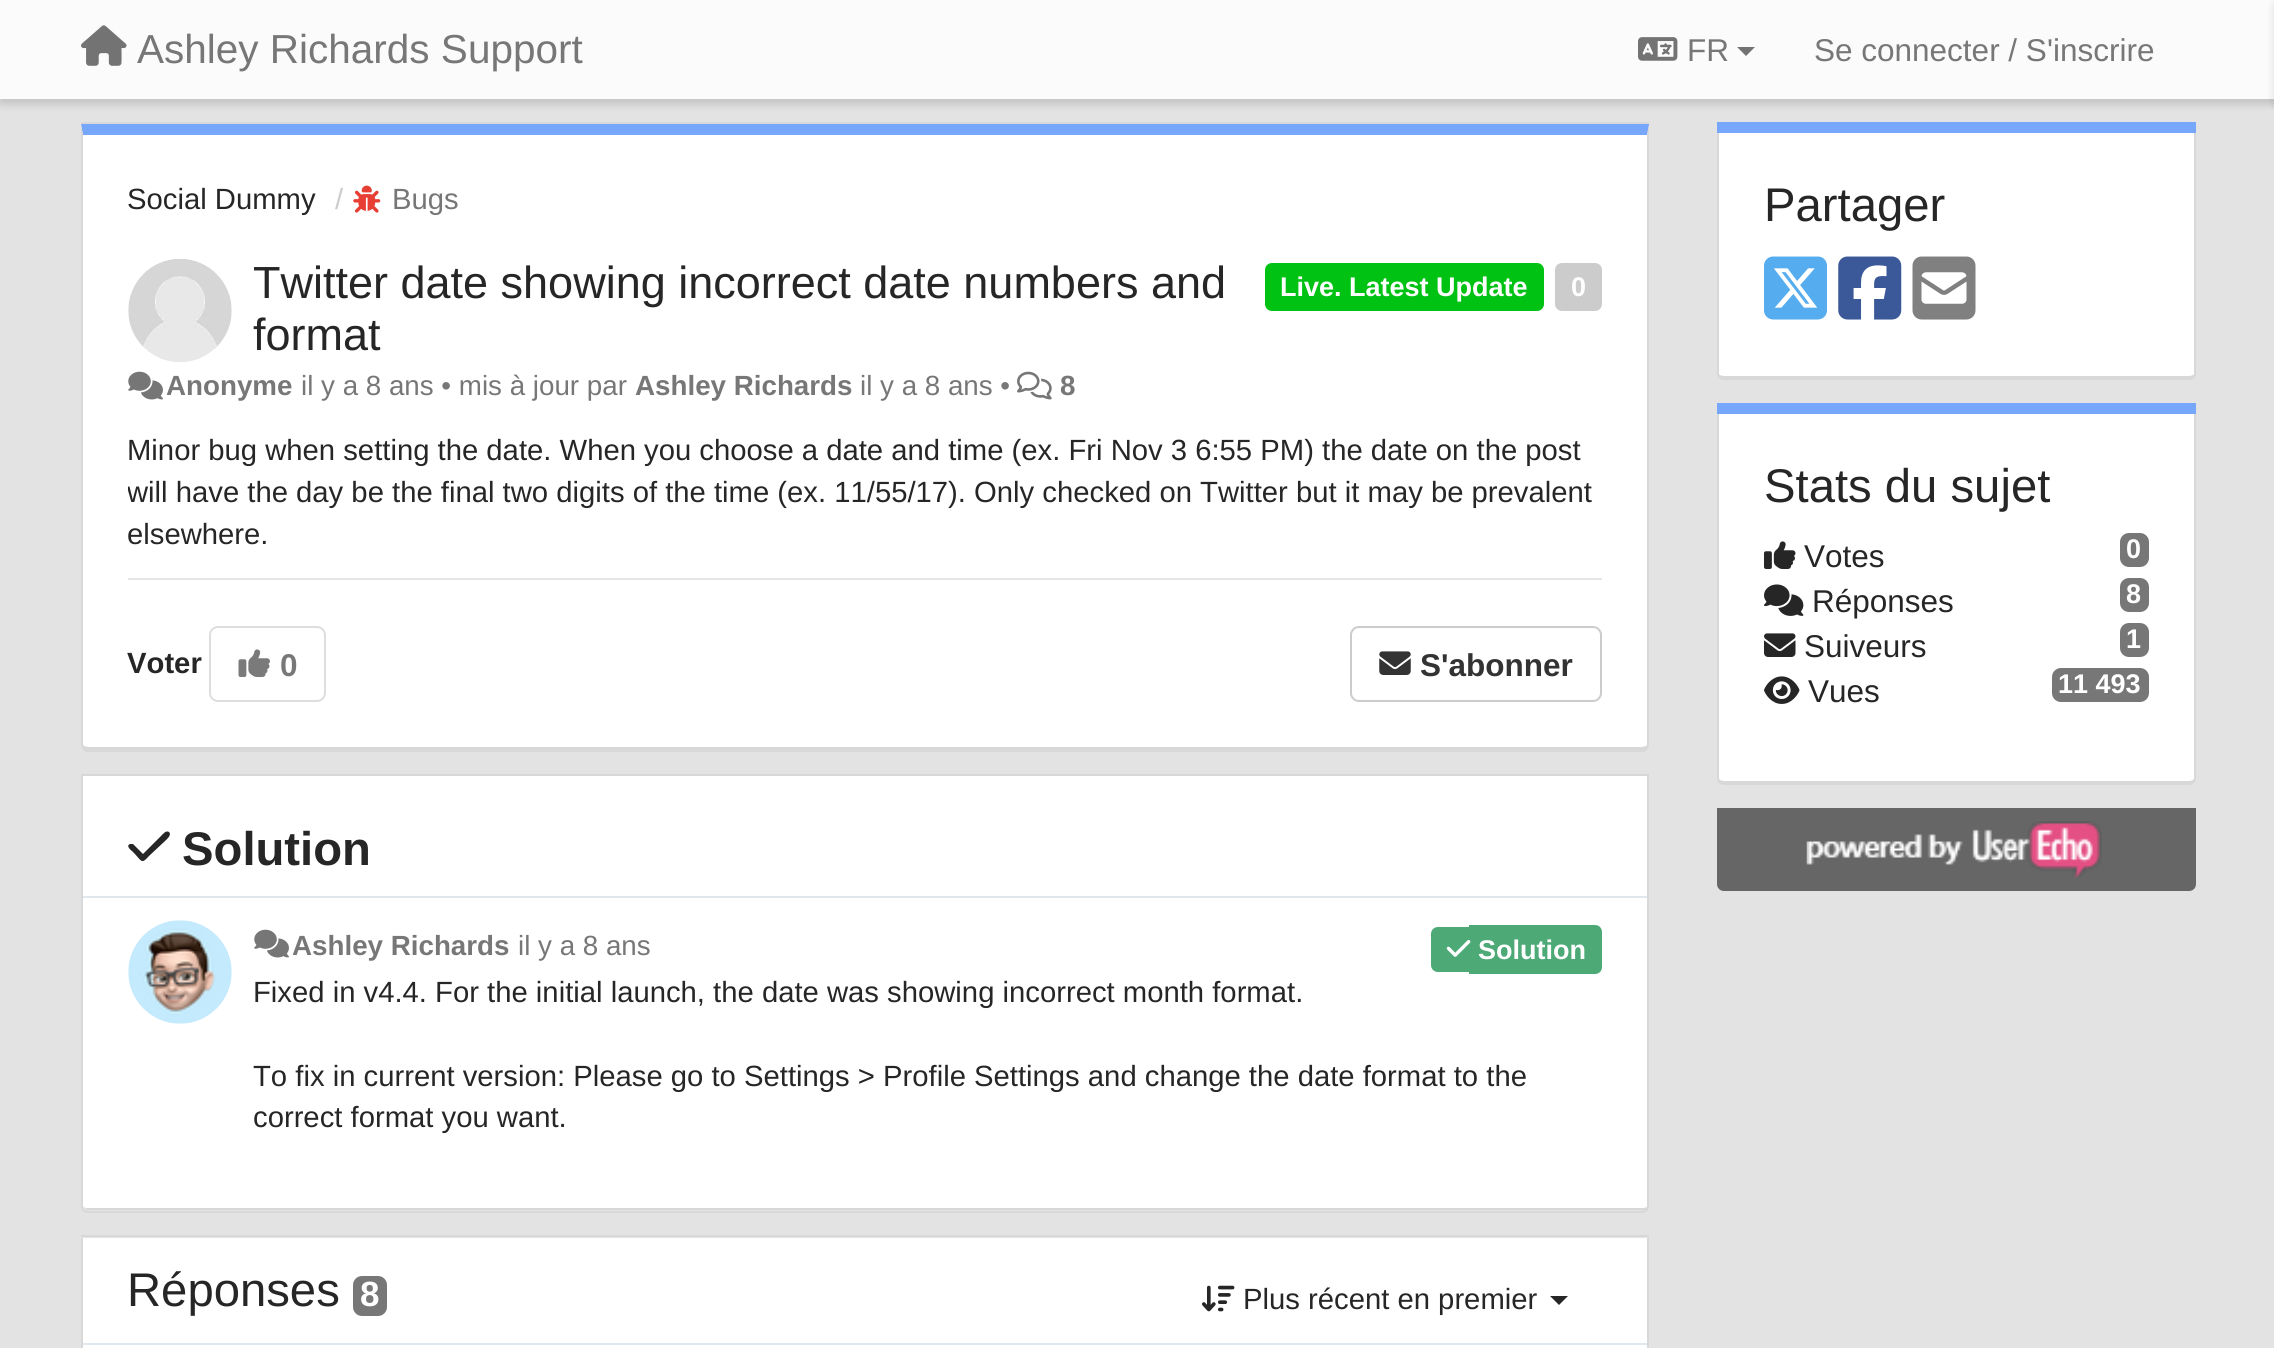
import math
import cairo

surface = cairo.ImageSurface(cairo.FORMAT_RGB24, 2274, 1348)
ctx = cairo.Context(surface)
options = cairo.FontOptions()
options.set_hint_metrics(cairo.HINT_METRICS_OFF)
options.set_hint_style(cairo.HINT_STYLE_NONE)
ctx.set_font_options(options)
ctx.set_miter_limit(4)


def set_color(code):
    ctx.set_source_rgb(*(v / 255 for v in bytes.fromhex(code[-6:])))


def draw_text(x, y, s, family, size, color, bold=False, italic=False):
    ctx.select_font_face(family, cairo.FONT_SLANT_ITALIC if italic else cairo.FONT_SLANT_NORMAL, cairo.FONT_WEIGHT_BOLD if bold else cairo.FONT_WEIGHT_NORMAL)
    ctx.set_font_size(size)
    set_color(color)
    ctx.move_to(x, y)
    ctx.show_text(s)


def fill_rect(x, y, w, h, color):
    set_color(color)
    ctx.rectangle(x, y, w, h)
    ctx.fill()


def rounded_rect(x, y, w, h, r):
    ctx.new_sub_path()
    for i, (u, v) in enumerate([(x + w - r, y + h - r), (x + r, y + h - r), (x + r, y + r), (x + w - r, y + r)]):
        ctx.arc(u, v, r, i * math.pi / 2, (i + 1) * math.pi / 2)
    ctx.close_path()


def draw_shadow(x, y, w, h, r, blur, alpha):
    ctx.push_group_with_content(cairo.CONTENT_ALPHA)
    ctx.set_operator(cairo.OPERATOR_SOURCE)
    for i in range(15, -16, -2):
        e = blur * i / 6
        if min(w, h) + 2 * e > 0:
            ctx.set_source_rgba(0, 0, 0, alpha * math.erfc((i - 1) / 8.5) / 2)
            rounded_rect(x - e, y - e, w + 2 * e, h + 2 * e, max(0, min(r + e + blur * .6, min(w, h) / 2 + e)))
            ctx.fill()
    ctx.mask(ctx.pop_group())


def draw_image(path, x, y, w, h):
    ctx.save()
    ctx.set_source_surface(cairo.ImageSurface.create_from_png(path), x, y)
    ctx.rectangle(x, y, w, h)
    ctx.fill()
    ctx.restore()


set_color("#e3e3e3")
ctx.paint()
set_color("#000000")
draw_shadow(0, 5, 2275, 99, 0, 4.5, 0.15)
fill_rect(0, 0, 2274, 99, "#fbfbfb")
draw_image("assets/img1.png", 81, 25, 46, 41)
draw_text(137, 63, "Ashley Richards Support", "Liberation Sans", 40.5, "#777777")
draw_image("assets/img2.png", 1638, 37, 40, 24)
draw_text(1687, 61, "FR", "Liberation Sans", 31.5, "#777777")
set_color("#737373")
ctx.new_path()
ctx.move_to(1737, 47)
ctx.line_to(1755, 47)
ctx.line_to(1746, 56)
ctx.close_path()
ctx.fill()
draw_text(1814, 61, "Se connecter / S'inscrire", "Liberation Sans", 31.5, "#777777")
set_color("#000000")
draw_shadow(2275, 5, 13, 99, 0, 4.5, 0.15)
fill_rect(81, 122, 1568, 2, "#d8d8d8")
set_color("#ffffff")
ctx.new_path()
ctx.move_to(83, 135)
ctx.line_to(1647, 135)
ctx.line_to(1647, 745)
ctx.curve_to(1647, 746, 1645, 747, 1642, 747)
ctx.line_to(88, 747)
ctx.curve_to(85, 747, 83, 746, 83, 745)
ctx.close_path()
ctx.fill()
set_color("#76a7fa")
ctx.new_path()
ctx.move_to(1649, 125)
ctx.line_to(1649, 124)
ctx.line_to(81, 124)
ctx.line_to(83, 135)
ctx.line_to(1647, 135)
ctx.close_path()
ctx.fill()
set_color("#d8d8d8")
ctx.new_path()
ctx.move_to(1648, 749)
ctx.line_to(1649, 745)
ctx.line_to(1649, 125)
ctx.line_to(1647, 135)
ctx.line_to(1647, 745)
ctx.line_to(1646, 746)
ctx.close_path()
ctx.fill()
ctx.new_path()
ctx.move_to(86, 752)
ctx.line_to(82, 749)
ctx.line_to(84, 746)
ctx.line_to(88, 747)
ctx.line_to(1642, 747)
ctx.line_to(1646, 746)
ctx.line_to(1648, 749)
ctx.line_to(1644, 752)
ctx.close_path()
ctx.fill()
ctx.new_path()
ctx.move_to(83, 135)
ctx.line_to(83, 745)
ctx.line_to(84, 746)
ctx.line_to(82, 749)
ctx.line_to(81, 745)
ctx.line_to(81, 124)
ctx.close_path()
ctx.fill()
draw_text(127, 209, "Social Dummy", "Liberation Sans", 29.25, "#262626")
draw_text(335, 209, "/", "Liberation Sans", 29.25, "#cccccc")
draw_image("assets/img3.png", 353, 185, 28, 28)
draw_text(392, 209, "Bugs", "Liberation Sans", 29.25, "#777777")
draw_image("assets/img4.png", 128, 259, 104, 103)
draw_text(253, 298, "Twitter date showing incorrect date numbers and", "Liberation Sans", 45, "#262626")
draw_text(253, 350, "format", "Liberation Sans", 45, "#262626")
set_color("#00c213")
rounded_rect(1265, 263, 279, 48, 7)
ctx.fill()
draw_text(1280, 296, "Live. Latest Update", "Liberation Sans", 27, "#ffffff", bold=True)
set_color("#cccccc")
rounded_rect(1555, 263, 47, 48, 7)
ctx.fill()
draw_text(1571, 296, "0", "Liberation Sans", 27, "#ffffff", bold=True)
draw_image("assets/img5.png", 128, 371, 35, 29)
draw_text(166, 395, "Anonyme", "Liberation Sans", 27.75, "#777777", bold=True)
draw_text(301, 395, "il y a 8 ans • mis à jour par", "Liberation Sans", 27.75, "#777777")
draw_text(635, 395, "Ashley Richards", "Liberation Sans", 27.75, "#777777", bold=True)
draw_text(860, 395, "il y a 8 ans •", "Liberation Sans", 27.75, "#777777")
draw_image("assets/img6.png", 1017, 371, 35, 29)
draw_text(1060, 395, "8", "Liberation Sans", 27.75, "#777777", bold=True)
draw_text(127, 460, "Minor bug when setting the date. When you choose a date and time (ex. Fri Nov 3 6:55 PM) the date on the post", "Liberation Sans", 29.25, "#262626")
ctx.save()
ctx.rectangle(128, 432, 1474, 124)
ctx.clip()
draw_text(127, 502, "will have the day be the final two digits of the time (ex. 11/55/17). Only checked on Twitter but it may be prevalent", "Liberation Sans", 29.25, "#262626")
ctx.restore()
draw_text(127, 544, "elsewhere.", "Liberation Sans", 29.25, "#262626")
fill_rect(128, 578, 1474, 2, "#e5e5e5")
draw_text(127, 673, "Voter", "Liberation Sans", 29.25, "#262626", bold=True)
rounded_rect(210, 627, 115, 74, 8)
set_color("#dedede")
ctx.stroke()
draw_image("assets/img7.png", 238, 649, 32, 28)
draw_text(280, 676, "0", "Liberation Sans", 31.5, "#777777", bold=True)
rounded_rect(1351, 627, 250, 74, 8)
set_color("#cccccc")
ctx.stroke()
draw_image("assets/img8.png", 1379, 651, 32, 24)
draw_text(1420, 676, "S'abonner", "Liberation Sans", 31.5, "#333333", bold=True)
set_color("#ffffff")
ctx.new_path()
ctx.move_to(83, 776)
ctx.line_to(1647, 776)
ctx.line_to(1647, 1206)
ctx.curve_to(1647, 1207, 1645, 1208, 1642, 1208)
ctx.line_to(88, 1208)
ctx.curve_to(85, 1208, 83, 1207, 83, 1206)
ctx.close_path()
ctx.fill()
ctx.new_path()
ctx.move_to(82, 775)
ctx.line_to(1648, 775)
ctx.line_to(1648, 1206)
ctx.curve_to(1648, 1209.5, 1645.5, 1212, 1642, 1212)
ctx.line_to(88, 1212)
ctx.curve_to(84.5, 1212, 82, 1209.5, 82, 1206)
ctx.close_path()
set_color("#d8d8d8")
ctx.stroke()
fill_rect(86, 1208, 1561, 2, "#d8d8d8")
set_color("#262626")
ctx.new_path()
ctx.move_to(169, 832)
ctx.curve_to(172, 835, 167, 839, 165, 841)
ctx.line_to(149, 856)
ctx.curve_to(141, 865, 142, 861, 133, 852)
ctx.curve_to(132, 851, 125, 846, 130, 844)
ctx.line_to(133, 844)
ctx.line_to(143, 854)
ctx.line_to(161, 836)
ctx.curve_to(163, 834, 166, 830, 169, 832)
ctx.close_path()
ctx.fill()
draw_text(182, 865, "Solution", "Liberation Sans", 47.25, "#262626", bold=True)
fill_rect(83, 896, 1564, 2, "#e1e8ed")
draw_image("assets/img9.png", 128, 920, 104, 104)
draw_image("assets/img5.png", 254, 929, 35, 29)
draw_text(292, 955, "Ashley Richards", "Liberation Sans", 27.75, "#777777", bold=True)
draw_text(518, 955, "il y a 8 ans", "Liberation Sans", 27.75, "#777777")
set_color("#4daa77")
ctx.new_path()
ctx.move_to(1438, 927)
ctx.line_to(1469, 927)
ctx.line_to(1469, 972)
ctx.line_to(1438, 972)
ctx.curve_to(1434, 972, 1431, 969, 1431, 965)
ctx.line_to(1431, 934)
ctx.curve_to(1431, 930, 1434, 927, 1438, 927)
ctx.close_path()
ctx.fill()
ctx.new_path()
ctx.move_to(1469, 925)
ctx.line_to(1595, 925)
ctx.curve_to(1599, 925, 1602, 928, 1602, 932)
ctx.line_to(1602, 967)
ctx.curve_to(1602, 971, 1599, 974, 1595, 974)
ctx.line_to(1469, 974)
ctx.close_path()
ctx.fill()
draw_image("assets/img10.png", 1446, 940, 25, 17)
draw_text(1478, 959, "Solution", "Liberation Sans", 27, "#ffffff", bold=True)
draw_text(253, 1002, "Fixed in v4.4. For the initial launch, the date was showing incorrect month format.", "Liberation Sans", 29.25, "#262626")
draw_text(253, 1086, "To fix in current version: Please go to Settings > Profile Settings and change the date format to the", "Liberation Sans", 29.25, "#262626")
draw_text(253, 1127, "correct format you want.", "Liberation Sans", 29.25, "#262626")
fill_rect(81, 1235, 1568, 2, "#d8d8d8")
fill_rect(83, 1238, 1564, 110, "#ffffff")
set_color("#d8d8d8")
ctx.set_fill_rule(cairo.FILL_RULE_EVEN_ODD)
ctx.new_path()
ctx.move_to(81, 1238)
ctx.line_to(1649, 1238)
ctx.line_to(1649, 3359)
ctx.curve_to(1649, 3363, 1646, 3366, 1642, 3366)
ctx.line_to(88, 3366)
ctx.curve_to(84, 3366, 81, 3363, 81, 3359)
ctx.close_path()
ctx.move_to(83, 1238)
ctx.line_to(1647, 1238)
ctx.line_to(1647, 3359)
ctx.curve_to(1647, 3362, 1645, 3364, 1642, 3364)
ctx.line_to(88, 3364)
ctx.curve_to(85, 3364, 83, 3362, 83, 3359)
ctx.close_path()
ctx.fill()
draw_text(127, 1306, "Réponses", "Liberation Sans", 47.25, "#262626")
set_color("#777777")
rounded_rect(353, 1276, 34, 40, 9)
ctx.fill()
draw_text(360, 1306, "8", "Liberation Sans", 35, "#ffffff", bold=True)
draw_image("assets/img11.png", 1202, 1285, 33, 27)
draw_text(1243, 1309, "Plus récent en premier", "Liberation Sans", 29.25, "#262626")
ctx.set_fill_rule(cairo.FILL_RULE_WINDING)
ctx.new_path()
ctx.move_to(1550, 1296)
ctx.line_to(1568, 1296)
ctx.line_to(1559, 1305)
ctx.close_path()
ctx.fill()
fill_rect(83, 1343, 1564, 2, "#e1e8ed")
fill_rect(1717, 122, 479, 11, "#76a7fa")
set_color("#ffffff")
ctx.new_path()
ctx.move_to(1719, 133)
ctx.line_to(2194, 133)
ctx.line_to(2194, 374)
ctx.curve_to(2194, 375, 2192, 376, 2189, 376)
ctx.line_to(1724, 376)
ctx.curve_to(1721, 376, 1719, 375, 1719, 374)
ctx.close_path()
ctx.fill()
set_color("#d8d8d8")
ctx.set_fill_rule(cairo.FILL_RULE_EVEN_ODD)
ctx.new_path()
ctx.move_to(1717, 133)
ctx.line_to(2196, 133)
ctx.line_to(2196, 374)
ctx.curve_to(2196, 377, 2193, 380, 2189, 380)
ctx.line_to(1724, 380)
ctx.curve_to(1720, 380, 1717, 377, 1717, 374)
ctx.close_path()
ctx.move_to(1719, 133)
ctx.line_to(2194, 133)
ctx.line_to(2194, 374)
ctx.curve_to(2194, 375, 2192, 376, 2189, 376)
ctx.line_to(1724, 376)
ctx.curve_to(1721, 376, 1719, 375, 1719, 374)
ctx.close_path()
ctx.fill()
draw_text(1764, 221, "Partager", "Liberation Sans", 47.25, "#262626")
draw_image("assets/img12.png", 1764, 256, 63, 64)
draw_image("assets/img13.png", 1838, 256, 64, 64)
draw_image("assets/img14.png", 1912, 256, 64, 64)
fill_rect(1717, 403, 479, 11, "#76a7fa")
set_color("#ffffff")
ctx.set_fill_rule(cairo.FILL_RULE_WINDING)
ctx.new_path()
ctx.move_to(1719, 414)
ctx.line_to(2194, 414)
ctx.line_to(2194, 778)
ctx.curve_to(2194, 780, 2192, 781, 2189, 781)
ctx.line_to(1724, 781)
ctx.curve_to(1721, 781, 1719, 780, 1719, 778)
ctx.close_path()
ctx.fill()
set_color("#d8d8d8")
ctx.set_fill_rule(cairo.FILL_RULE_EVEN_ODD)
ctx.new_path()
ctx.move_to(1717, 414)
ctx.line_to(2196, 414)
ctx.line_to(2196, 778)
ctx.curve_to(2196, 782, 2193, 785, 2189, 785)
ctx.line_to(1724, 785)
ctx.curve_to(1720, 785, 1717, 782, 1717, 778)
ctx.close_path()
ctx.move_to(1719, 414)
ctx.line_to(2194, 414)
ctx.line_to(2194, 778)
ctx.curve_to(2194, 780, 2192, 781, 2189, 781)
ctx.line_to(1724, 781)
ctx.curve_to(1721, 781, 1719, 780, 1719, 778)
ctx.close_path()
ctx.fill()
draw_text(1764, 502, "Stats du sujet", "Liberation Sans", 47.25, "#262626")
draw_image("assets/img15.png", 1764, 541, 32, 28)
draw_text(1804, 567, "Votes", "Liberation Sans", 31.5, "#262626")
set_color("#777777")
rounded_rect(2120, 533, 29, 34, 9)
ctx.fill()
draw_text(2126, 558, "0", "Liberation Sans", 27, "#ffffff", bold=True)
draw_image("assets/img16.png", 1764, 584, 40, 32)
draw_text(1812, 612, "Réponses", "Liberation Sans", 31.5, "#262626")
set_color("#777777")
rounded_rect(2120, 578, 29, 34, 9)
ctx.fill()
draw_text(2126, 603, "8", "Liberation Sans", 27, "#ffffff", bold=True)
draw_image("assets/img17.png", 1764, 633, 32, 24)
draw_text(1804, 657, "Suiveurs", "Liberation Sans", 31.5, "#262626")
set_color("#777777")
rounded_rect(2120, 623, 29, 34, 9)
ctx.fill()
draw_text(2126, 648, "1", "Liberation Sans", 27, "#ffffff", bold=True)
draw_image("assets/img18.png", 1764, 676, 36, 28)
draw_text(1808, 702, "Vues", "Liberation Sans", 31.5, "#262626")
set_color("#777777")
rounded_rect(2052, 668, 97, 34, 9)
ctx.fill()
draw_text(2058, 693, "11 493", "Liberation Sans", 27, "#ffffff", bold=True)
set_color("#666666")
ctx.new_path()
ctx.move_to(1717, 808)
ctx.line_to(2196, 808)
ctx.line_to(2196, 884)
ctx.curve_to(2196, 888, 2193, 891, 2189, 891)
ctx.line_to(1724, 891)
ctx.curve_to(1720, 891, 1717, 888, 1717, 884)
ctx.close_path()
ctx.fill()
draw_image("assets/img19.png", 1806, 821, 296, 57)
surface.write_to_png("output.png")
